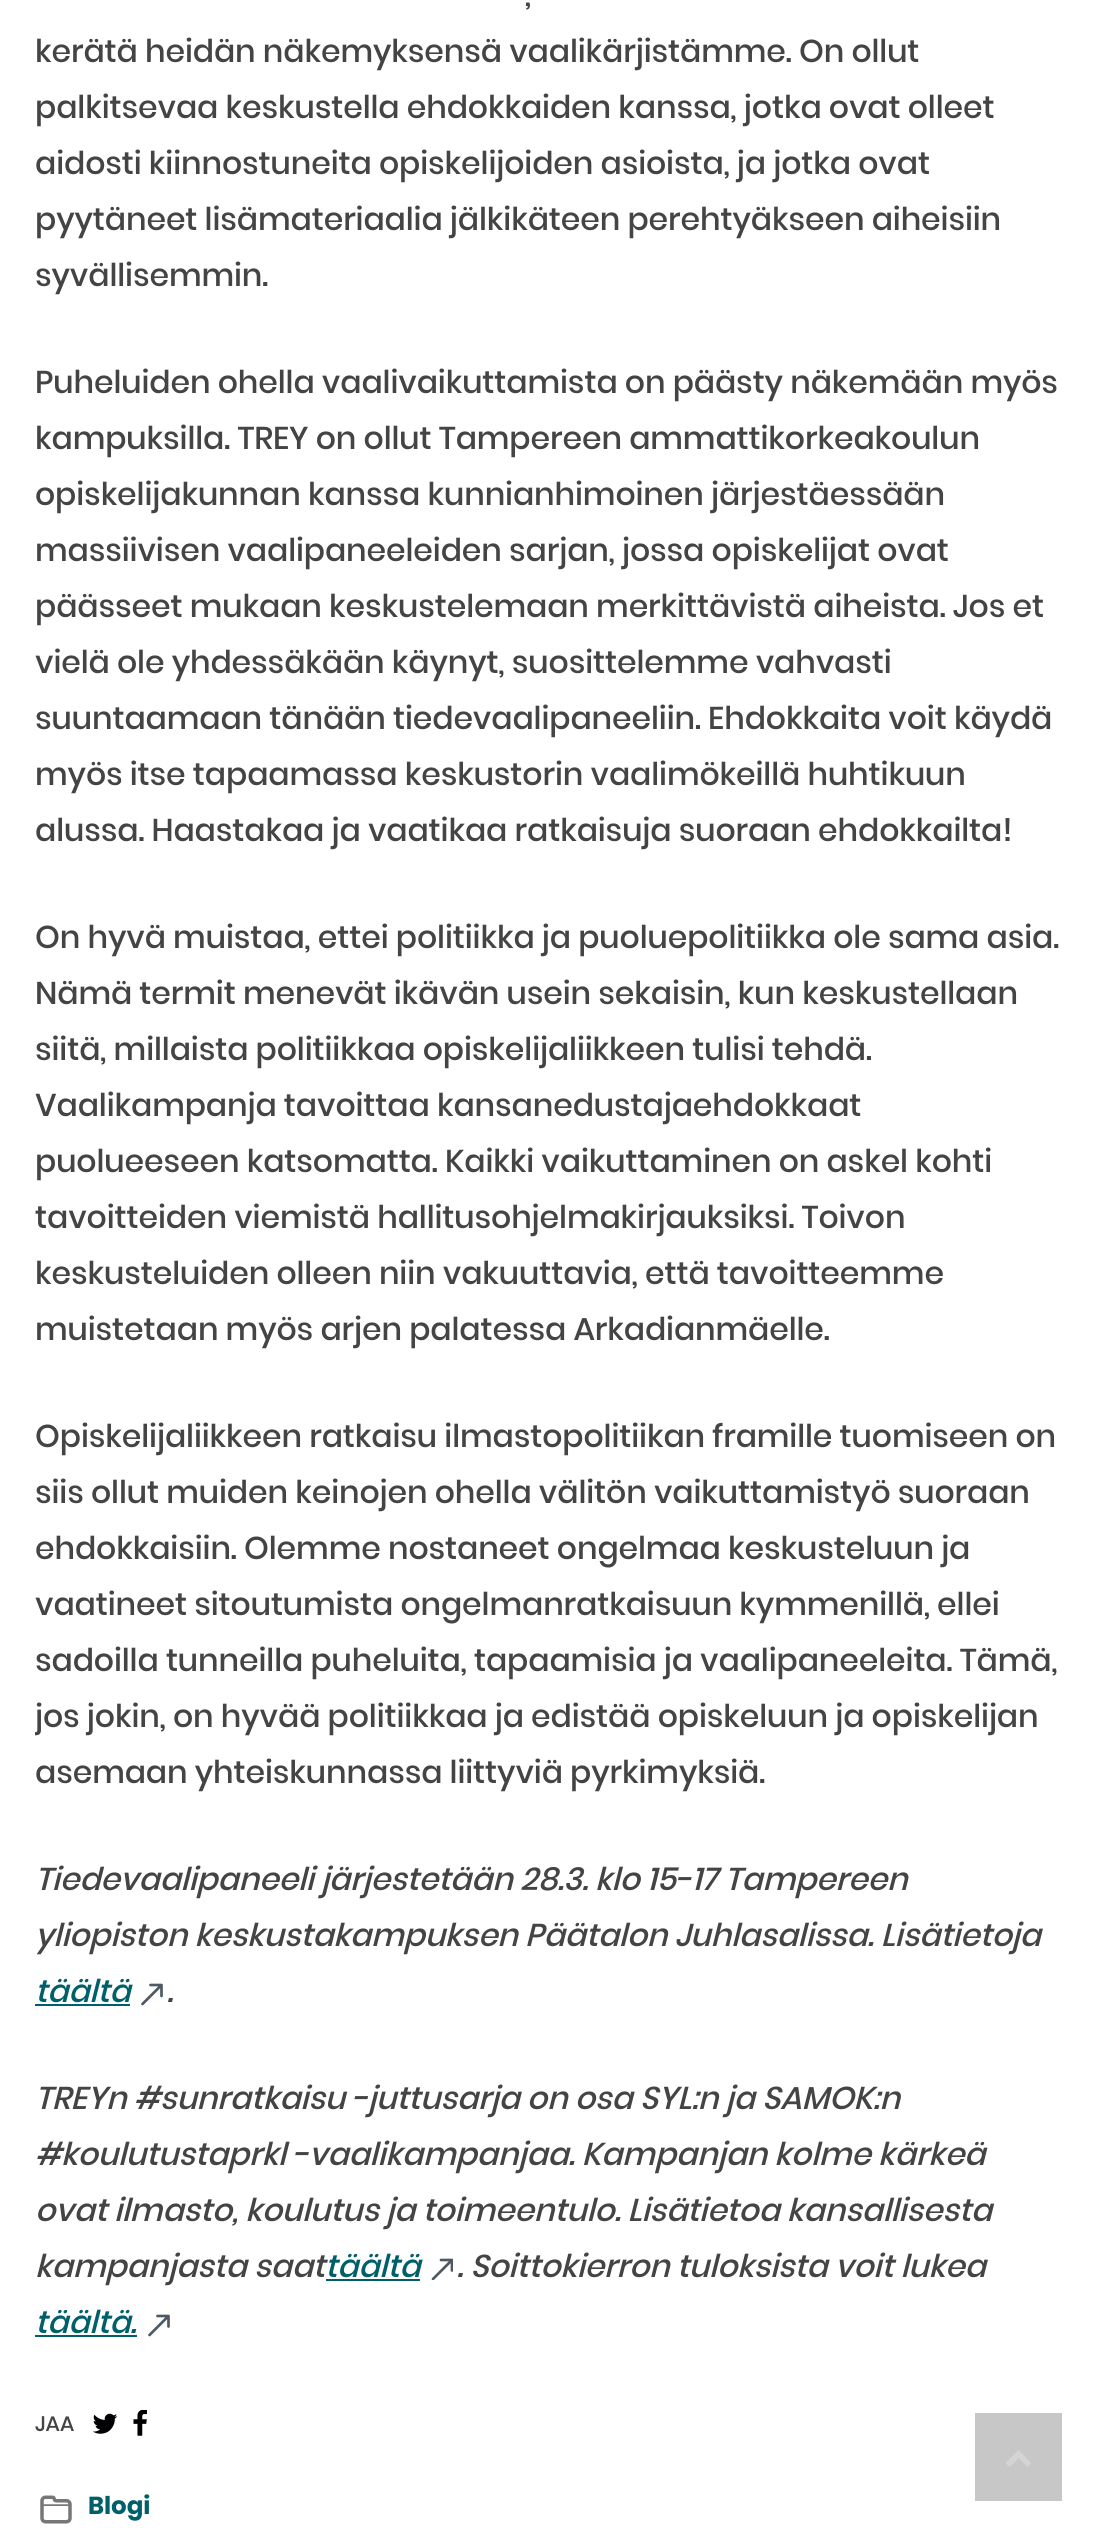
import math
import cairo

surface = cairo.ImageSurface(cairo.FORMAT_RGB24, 1097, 2535)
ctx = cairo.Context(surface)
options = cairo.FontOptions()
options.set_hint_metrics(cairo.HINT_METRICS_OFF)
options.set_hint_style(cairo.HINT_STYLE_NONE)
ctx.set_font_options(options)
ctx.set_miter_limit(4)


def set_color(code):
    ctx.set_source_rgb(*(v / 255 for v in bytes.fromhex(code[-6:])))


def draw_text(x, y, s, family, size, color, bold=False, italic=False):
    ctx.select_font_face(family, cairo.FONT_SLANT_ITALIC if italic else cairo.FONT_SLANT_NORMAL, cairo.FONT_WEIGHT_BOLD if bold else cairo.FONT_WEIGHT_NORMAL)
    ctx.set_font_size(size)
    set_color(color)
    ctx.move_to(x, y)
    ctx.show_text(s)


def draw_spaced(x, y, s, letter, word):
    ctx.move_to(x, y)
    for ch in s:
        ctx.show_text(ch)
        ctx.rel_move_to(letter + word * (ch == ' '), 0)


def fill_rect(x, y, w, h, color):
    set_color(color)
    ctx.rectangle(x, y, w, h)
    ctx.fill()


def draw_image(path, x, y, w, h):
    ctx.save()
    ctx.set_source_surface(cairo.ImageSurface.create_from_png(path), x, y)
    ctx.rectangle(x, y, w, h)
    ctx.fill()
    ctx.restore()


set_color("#ffffff")
ctx.paint()
ctx.select_font_face("Poppins Medium")
ctx.set_font_size(31.5)
set_color("#444444")
draw_spaced(525, 5, ",", -0.1, 0)
draw_spaced(35, 62, "kerätä heidän näkemyksensä vaalikärjistämme. On ollut", -0.1, 0)
draw_spaced(35, 118, "palkitsevaa keskustella ehdokkaiden kanssa, jotka ovat olleet", -0.1, 0)
draw_spaced(35, 174, "aidosti kiinnostuneita opiskelijoiden asioista, ja jotka ovat", -0.1, 0)
draw_spaced(35, 230, "pyytäneet lisämateriaalia jälkikäteen perehtyäkseen aiheisiin", -0.1, 0)
draw_spaced(35, 286, "syvällisemmin.", -0.1, 0)
draw_spaced(35, 393, "Puheluiden ohella vaalivaikuttamista on päästy näkemään myös", -0.1, 0)
draw_spaced(35, 449, "kampuksilla. TREY on ollut Tampereen ammattikorkeakoulun", -0.1, 0)
draw_spaced(35, 505, "opiskelijakunnan kanssa kunnianhimoinen järjestäessään", -0.1, 0)
draw_spaced(35, 561, "massiivisen vaalipaneeleiden sarjan, jossa opiskelijat ovat", -0.1, 0)
draw_spaced(35, 617, "päässeet mukaan keskustelemaan merkittävistä aiheista. Jos et", -0.1, 0)
draw_spaced(35, 673, "vielä ole yhdessäkään käynyt, suosittelemme vahvasti", -0.1, 0)
draw_spaced(35, 729, "suuntaamaan tänään tiedevaalipaneeliin. Ehdokkaita voit käydä", -0.1, 0)
draw_spaced(35, 785, "myös itse tapaamassa keskustorin vaalimökeillä huhtikuun", -0.1, 0)
draw_spaced(35, 841, "alussa. Haastakaa ja vaatikaa ratkaisuja suoraan ehdokkailta!", -0.1, 0)
draw_spaced(35, 948, "On hyvä muistaa, ettei politiikka ja puoluepolitiikka ole sama asia.", -0.1, 0)
draw_spaced(35, 1004, "Nämä termit menevät ikävän usein sekaisin, kun keskustellaan", -0.1, 0)
draw_spaced(35, 1060, "siitä, millaista politiikkaa opiskelijaliikkeen tulisi tehdä.", -0.1, 0)
draw_spaced(35, 1116, "Vaalikampanja tavoittaa kansanedustajaehdokkaat", -0.1, 0)
draw_spaced(35, 1172, "puolueeseen katsomatta. Kaikki vaikuttaminen on askel kohti", -0.1, 0)
draw_spaced(35, 1228, "tavoitteiden viemistä hallitusohjelmakirjauksiksi. Toivon", -0.1, 0)
draw_spaced(35, 1284, "keskusteluiden olleen niin vakuuttavia, että tavoitteemme", -0.1, 0)
draw_spaced(35, 1340, "muistetaan myös arjen palatessa Arkadianmäelle.", -0.1, 0)
draw_spaced(35, 1447, "Opiskelijaliikkeen ratkaisu ilmastopolitiikan framille tuomiseen on", -0.1, 0)
draw_spaced(35, 1503, "siis ollut muiden keinojen ohella välitön vaikuttamistyö suoraan", -0.1, 0)
draw_spaced(35, 1559, "ehdokkaisiin. Olemme nostaneet ongelmaa keskusteluun ja", -0.1, 0)
draw_spaced(35, 1615, "vaatineet sitoutumista ongelmanratkaisuun kymmenillä, ellei", -0.1, 0)
draw_spaced(35, 1671, "sadoilla tunneilla puheluita, tapaamisia ja vaalipaneeleita. Tämä,", -0.1, 0)
ctx.save()
ctx.rectangle(35, 0, 1027, 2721)
ctx.clip()
draw_spaced(35, 1727, "jos jokin, on hyvää politiikkaa ja edistää opiskeluun ja opiskelijan", -0.1, 0)
ctx.restore()
draw_spaced(35, 1783, "asemaan yhteiskunnassa liittyviä pyrkimyksiä.", -0.1, 0)
ctx.select_font_face("Poppins Medium", cairo.FONT_SLANT_ITALIC)
draw_spaced(35, 1890, "Tiedevaalipaneeli järjestetään 28.3. klo 15-17 Tampereen", -0.1, 0)
draw_spaced(35, 1946, "yliopiston keskustakampuksen Päätalon Juhlasalissa. Lisätietoja", -0.1, 0)
set_color("#006069")
draw_spaced(35, 2002, "täältä", -0.1, 0)
fill_rect(35, 2004, 95, 2, "#006069")
ctx.new_path()
ctx.move_to(150.5, 1985)
ctx.line_to(161.5, 1985)
ctx.line_to(161.5, 1996)
ctx.move_to(161.5, 1985)
ctx.line_to(142.5, 2004)
set_color("#4f5964")
ctx.set_line_width(2.7)
ctx.set_line_cap(cairo.LINE_CAP_ROUND)
ctx.set_line_join(cairo.LINE_JOIN_ROUND)
ctx.stroke()
set_color("#444444")
draw_spaced(167, 2002, ".", -0.1, 0)
draw_spaced(35, 2109, "TREYn #sunratkaisu -juttusarja on osa SYL:n ja SAMOK:n", -0.1, 0)
draw_spaced(35, 2165, "#koulutustaprkl -vaalikampanjaa. Kampanjan kolme kärkeä", -0.1, 0)
draw_spaced(35, 2221, "ovat ilmasto, koulutus ja toimeentulo. Lisätietoa kansallisesta", -0.1, 0)
draw_spaced(35, 2277, "kampanjasta saat", -0.1, 0)
draw_spaced(457, 2277, ". Soittokierron tuloksista voit lukea", -0.1, 0)
set_color("#006069")
draw_spaced(35, 2333, "täältä.", -0.1, 0)
fill_rect(35, 2335, 102, 2, "#006069")
ctx.new_path()
ctx.move_to(157.5, 2316)
ctx.line_to(168.5, 2316)
ctx.line_to(168.5, 2326.5)
ctx.move_to(168.5, 2316)
ctx.line_to(149.5, 2335)
set_color("#4f5964")
ctx.stroke()
set_color("#006069")
draw_spaced(325, 2277, "täältä", -0.1, 0)
fill_rect(326, 2279, 94, 2, "#006069")
ctx.save()
ctx.rectangle(429, 2256, 24, 24)
ctx.clip()
ctx.new_path()
ctx.move_to(441, 2260)
ctx.line_to(452, 2260)
ctx.line_to(452, 2270.5)
ctx.move_to(452, 2260)
ctx.line_to(433, 2279)
set_color("#4f5964")
ctx.stroke()
ctx.restore()
draw_text(35, 2431, "JAA", "Poppins Medium", 21, "#444444")
draw_image("assets/img1.png", 92, 2413, 26, 21)
draw_image("assets/img2.png", 133, 2410, 14, 26)
draw_image("assets/img3.png", 40, 2495, 32, 29)
draw_text(88, 2514, "Blogi", "Poppins", 24.5, "#006069", bold=True)
fill_rect(975, 2413, 87, 88, "#c7c7c7")
draw_image("assets/img4.png", 1006, 2450, 25, 17)
surface.write_to_png("output.png")
